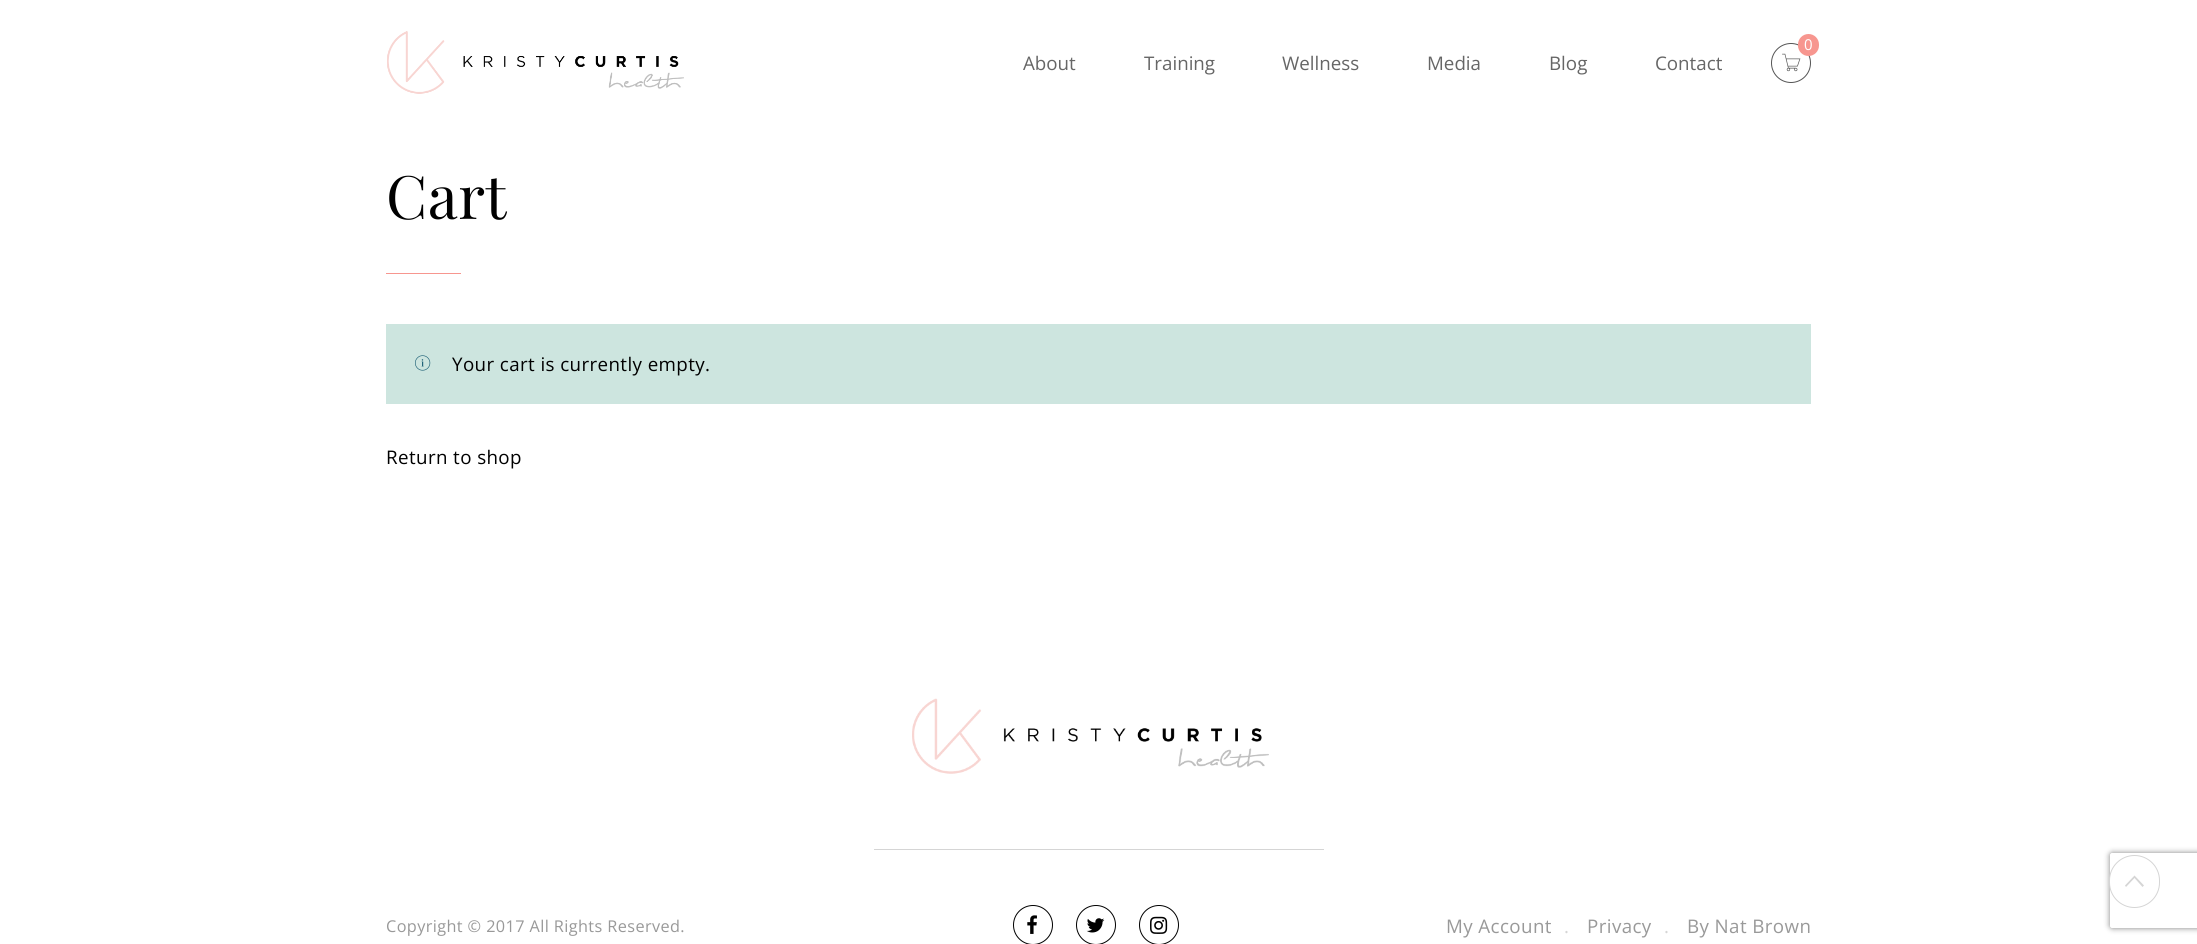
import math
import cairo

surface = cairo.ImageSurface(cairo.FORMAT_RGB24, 2197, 944)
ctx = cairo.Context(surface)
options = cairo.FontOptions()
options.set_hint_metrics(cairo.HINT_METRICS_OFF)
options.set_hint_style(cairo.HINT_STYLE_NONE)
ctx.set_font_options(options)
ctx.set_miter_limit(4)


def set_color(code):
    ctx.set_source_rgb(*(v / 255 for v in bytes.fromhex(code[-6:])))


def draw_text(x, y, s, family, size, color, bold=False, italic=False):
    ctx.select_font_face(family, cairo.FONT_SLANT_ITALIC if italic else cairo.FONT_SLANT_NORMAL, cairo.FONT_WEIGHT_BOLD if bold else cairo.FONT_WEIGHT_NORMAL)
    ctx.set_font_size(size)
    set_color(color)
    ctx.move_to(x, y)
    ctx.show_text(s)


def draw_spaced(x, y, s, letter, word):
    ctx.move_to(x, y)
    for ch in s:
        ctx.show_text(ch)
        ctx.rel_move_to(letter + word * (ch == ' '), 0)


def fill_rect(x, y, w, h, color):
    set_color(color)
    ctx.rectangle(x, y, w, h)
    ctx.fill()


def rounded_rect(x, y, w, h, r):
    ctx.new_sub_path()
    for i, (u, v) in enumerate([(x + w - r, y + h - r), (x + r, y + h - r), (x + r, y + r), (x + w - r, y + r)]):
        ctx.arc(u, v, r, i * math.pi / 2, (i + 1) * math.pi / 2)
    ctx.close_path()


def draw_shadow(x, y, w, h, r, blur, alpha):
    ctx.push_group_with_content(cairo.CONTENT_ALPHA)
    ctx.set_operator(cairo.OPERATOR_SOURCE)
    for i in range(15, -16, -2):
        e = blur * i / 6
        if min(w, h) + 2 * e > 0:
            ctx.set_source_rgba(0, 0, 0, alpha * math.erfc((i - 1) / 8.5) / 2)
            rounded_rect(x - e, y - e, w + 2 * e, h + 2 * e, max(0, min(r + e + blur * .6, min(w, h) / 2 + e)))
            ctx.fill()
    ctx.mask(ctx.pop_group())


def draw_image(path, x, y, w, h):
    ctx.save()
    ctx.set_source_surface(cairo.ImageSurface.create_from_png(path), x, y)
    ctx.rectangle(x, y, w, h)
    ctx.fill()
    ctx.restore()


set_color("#ffffff")
ctx.paint()
draw_image("assets/img1.png", 387, 31, 297, 63)
ctx.arc(1791, 63, 19.5, 0, 2 * math.pi)
set_color("#555555")
ctx.set_line_width(1)
ctx.stroke()
draw_image("assets/img2.png", 1782, 53, 19, 19)
set_color("#f7968f")
rounded_rect(1798, 34, 21, 22, 10.5)
ctx.fill()
ctx.select_font_face("Open Sans")
ctx.set_font_size(15)
set_color("#ffffff")
draw_spaced(1804, 50, "0", 0.4, 0)
draw_text(1023, 70, "About", "Open Sans", 18.75, "#666666")
draw_text(1144, 70, "Training", "Open Sans", 18.75, "#666666")
draw_text(1282, 70, "Wellness", "Open Sans", 18.75, "#666666")
draw_text(1427, 70, "Media", "Open Sans", 18.75, "#666666")
draw_text(1549, 70, "Blog", "Open Sans", 18.75, "#666666")
draw_text(1655, 70, "Contact", "Open Sans", 18.75, "#666666")
ctx.select_font_face("Playfair Display")
ctx.set_font_size(60)
set_color("#000000")
draw_spaced(386, 219, "Cart", 0.5, 0)
fill_rect(386, 273, 75, 1, "#f7968f")
fill_rect(386, 324, 1425, 80, "#cde5df")
draw_image("assets/img3.png", 415, 355, 16, 16)
ctx.select_font_face("Open Sans")
ctx.set_font_size(18.75)
set_color("#000000")
draw_spaced(452, 371, "Your cart is currently empty.", 0.4, 0)
draw_spaced(386, 464, "Return to shop", 0.4, 0)
draw_image("assets/img4.png", 912, 698, 357, 76)
fill_rect(874, 849, 450, 1, "#d5d5d5")
ctx.set_font_size(16.25)
set_color("#999999")
draw_spaced(386, 932, "Copyright © 2017 All Rights Reserved.", 0.4, 0)
ctx.new_path()
ctx.arc(1033, 925, 19.5, 0, 2 * math.pi)
set_color("#000000")
ctx.stroke()
draw_image("assets/img5.png", 1027, 915, 10, 19)
ctx.arc(1096, 925, 19.5, 0, 2 * math.pi)
ctx.stroke()
draw_image("assets/img6.png", 1086, 918, 19, 15)
ctx.arc(1159, 925, 19.5, 0, 2 * math.pi)
ctx.stroke()
draw_image("assets/img7.png", 1150, 916, 18, 18)
ctx.set_font_size(18.75)
set_color("#999999")
draw_spaced(1446, 933, "My Account", 0.4, 0)
set_color("#d5d5d5")
draw_spaced(1564, 933, ".", 0.4, 0)
set_color("#999999")
draw_spaced(1587, 933, "Privacy", 0.4, 0)
set_color("#d5d5d5")
draw_spaced(1664, 933, ".", 0.4, 0)
set_color("#999999")
draw_spaced(1687, 933, "By Nat Brown", 0.4, 0)
ctx.save()
ctx.set_fill_rule(cairo.FILL_RULE_EVEN_ODD)
ctx.new_path()
ctx.move_to(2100, 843)
ctx.line_to(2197, 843)
ctx.line_to(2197, 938)
ctx.line_to(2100, 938)
ctx.close_path()
ctx.move_to(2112.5, 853)
ctx.line_to(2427.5, 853)
ctx.curve_to(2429, 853, 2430, 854, 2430, 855.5)
ctx.line_to(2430, 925.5)
ctx.curve_to(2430, 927, 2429, 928, 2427.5, 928)
ctx.line_to(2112.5, 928)
ctx.curve_to(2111, 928, 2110, 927, 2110, 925.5)
ctx.line_to(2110, 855.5)
ctx.curve_to(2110, 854, 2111, 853, 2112.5, 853)
ctx.close_path()
ctx.clip()
set_color("#808080")
draw_shadow(2110, 853, 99, 75, 2.5, 3, 1)
ctx.restore()
rounded_rect(2109.5, 855.5, 50, 52, 25)
set_color("#d5d5d5")
ctx.stroke()
ctx.new_path()
ctx.move_to(2142.5, 887)
ctx.line_to(2134.5, 878)
ctx.line_to(2126, 887)
ctx.line_to(2125, 885.5)
ctx.line_to(2134.5, 875.5)
ctx.line_to(2144, 885.5)
ctx.close_path()
ctx.fill()
surface.write_to_png("output.png")
